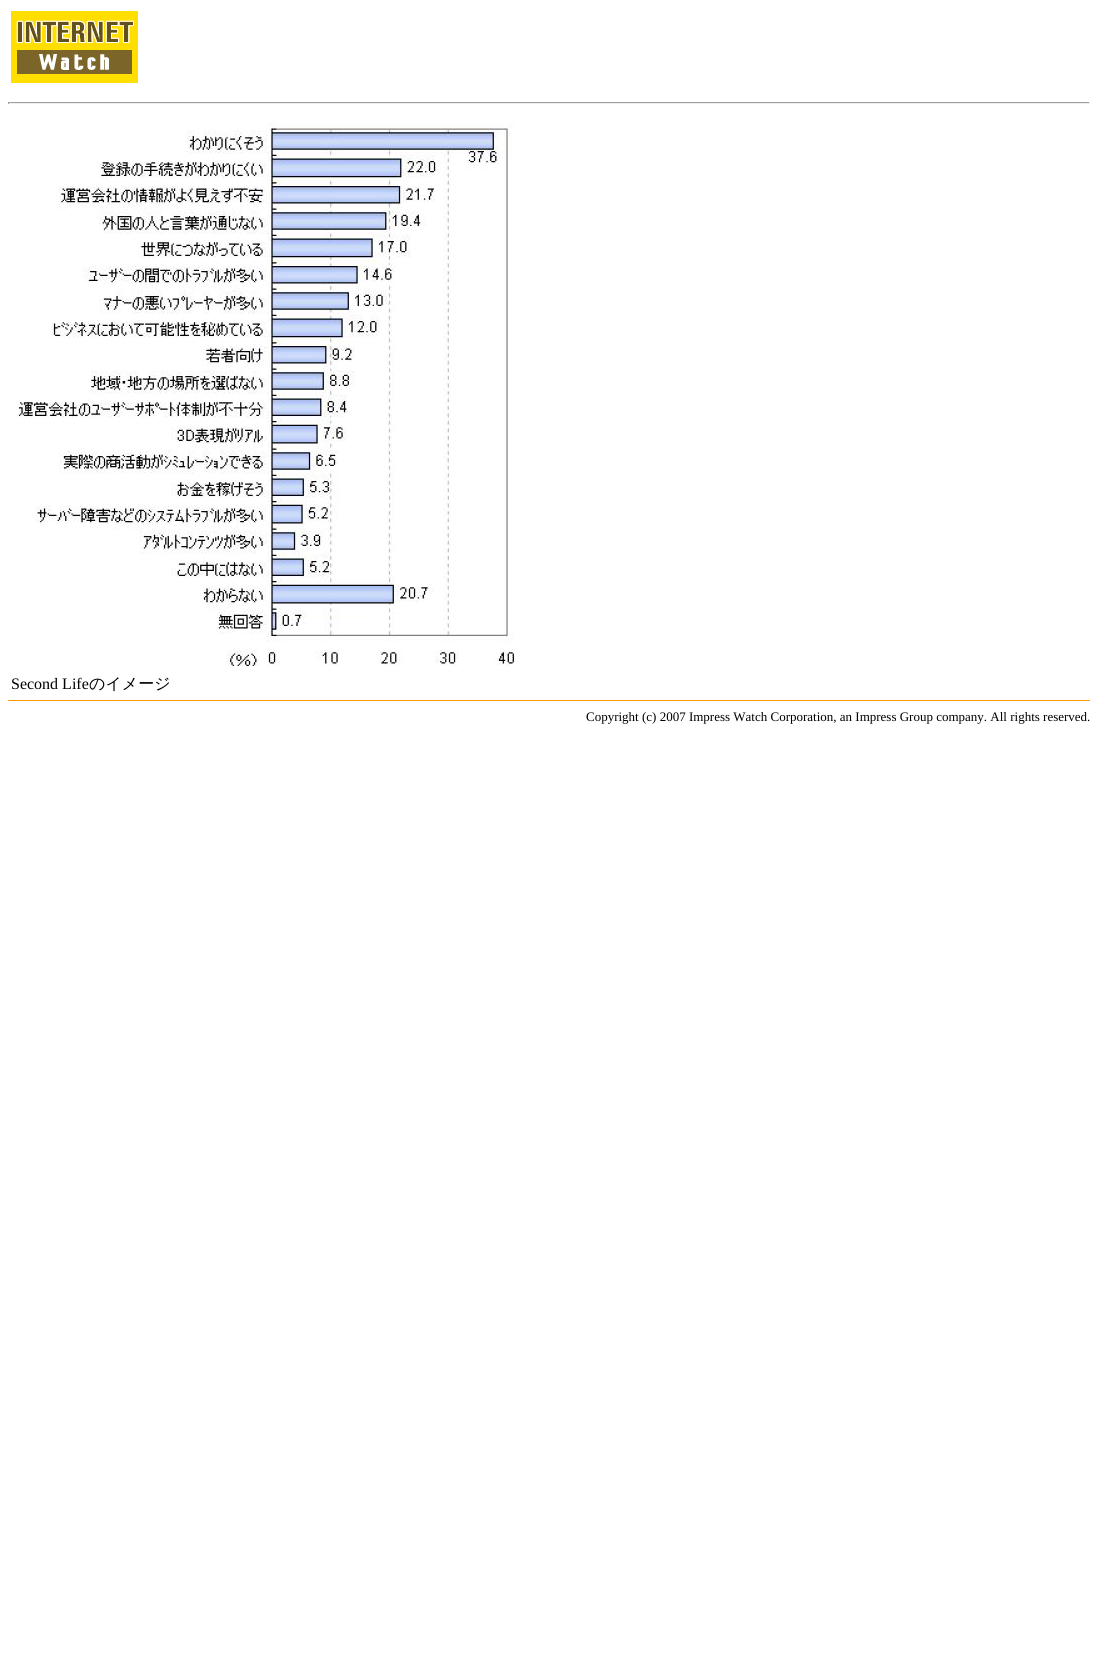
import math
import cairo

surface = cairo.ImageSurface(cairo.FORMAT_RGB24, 1098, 1670)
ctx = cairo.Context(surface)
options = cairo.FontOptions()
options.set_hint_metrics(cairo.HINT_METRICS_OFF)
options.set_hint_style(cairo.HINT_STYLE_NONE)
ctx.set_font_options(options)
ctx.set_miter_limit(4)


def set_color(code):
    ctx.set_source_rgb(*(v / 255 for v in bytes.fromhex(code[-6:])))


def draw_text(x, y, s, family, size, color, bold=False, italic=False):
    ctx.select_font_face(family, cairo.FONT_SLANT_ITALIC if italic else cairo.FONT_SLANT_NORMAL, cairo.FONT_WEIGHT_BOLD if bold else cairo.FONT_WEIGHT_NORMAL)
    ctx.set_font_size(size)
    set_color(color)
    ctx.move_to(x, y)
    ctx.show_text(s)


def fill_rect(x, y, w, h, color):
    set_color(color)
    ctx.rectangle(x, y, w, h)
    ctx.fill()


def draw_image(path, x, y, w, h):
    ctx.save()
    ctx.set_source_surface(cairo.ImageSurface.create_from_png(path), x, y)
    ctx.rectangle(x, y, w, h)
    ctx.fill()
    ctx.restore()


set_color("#ffffff")
ctx.paint()
draw_image("assets/img1.png", 11, 11, 127, 72)
fill_rect(8, 102, 1082, 1, "#9f9f9f")
fill_rect(1089, 102, 1, 2, "#eeeeee")
fill_rect(8, 103, 1082, 1, "#eeeeee")
fill_rect(8, 102, 1, 2, "#9f9f9f")
draw_image("assets/img2.png", 17, 123, 498, 543)
draw_text(11, 689, "Second Life", "Liberation Serif", 16, "#000000")
draw_text(89, 689, "のイメージ", "WenQuanYi Zen Hei Medium", 16, "#000000")
fill_rect(8, 700, 1082, 1, "#ff9900")
draw_text(586, 721, "Copyright (c) 2007 Impress Watch Corporation, an Impress Group company. All rights reserved.", "Liberation Serif", 13, "#000000")
surface.write_to_png("output.png")
